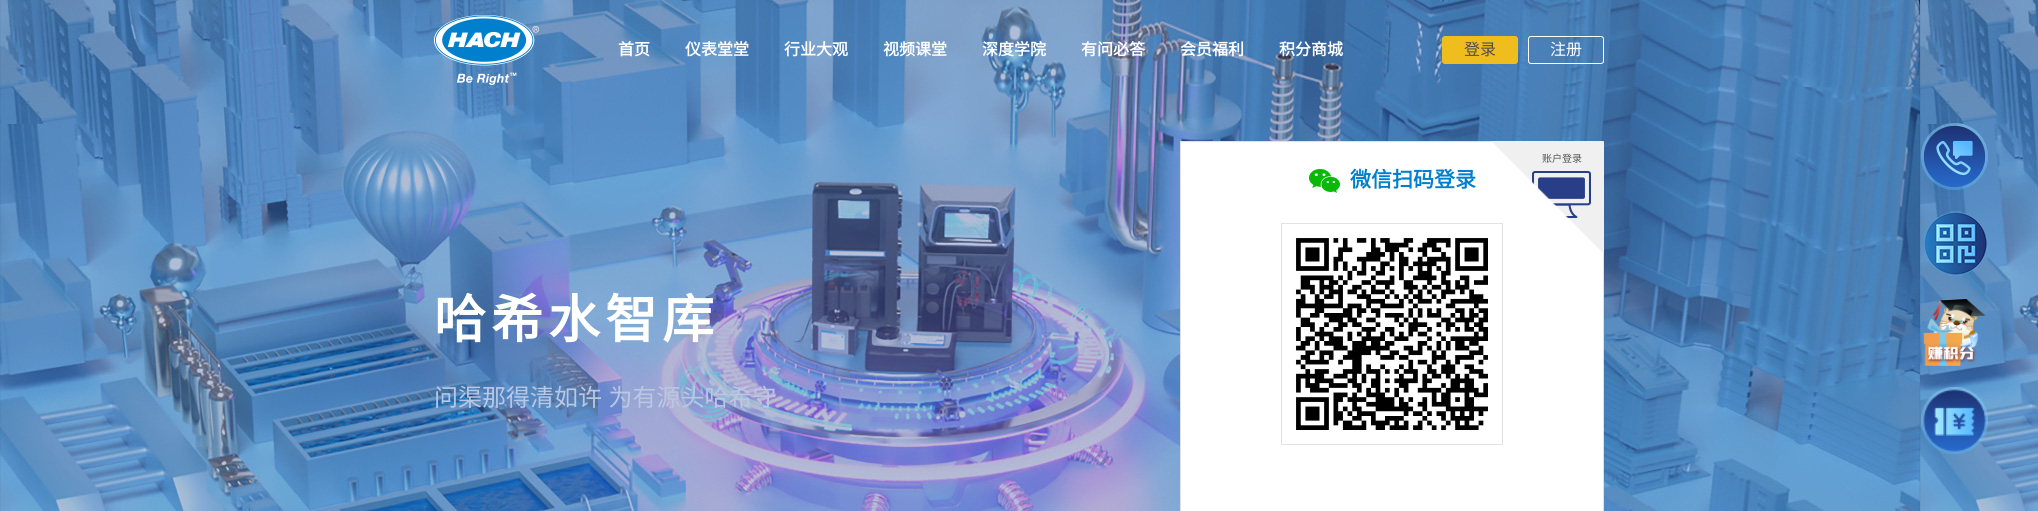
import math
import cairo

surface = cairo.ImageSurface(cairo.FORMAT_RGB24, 2038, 511)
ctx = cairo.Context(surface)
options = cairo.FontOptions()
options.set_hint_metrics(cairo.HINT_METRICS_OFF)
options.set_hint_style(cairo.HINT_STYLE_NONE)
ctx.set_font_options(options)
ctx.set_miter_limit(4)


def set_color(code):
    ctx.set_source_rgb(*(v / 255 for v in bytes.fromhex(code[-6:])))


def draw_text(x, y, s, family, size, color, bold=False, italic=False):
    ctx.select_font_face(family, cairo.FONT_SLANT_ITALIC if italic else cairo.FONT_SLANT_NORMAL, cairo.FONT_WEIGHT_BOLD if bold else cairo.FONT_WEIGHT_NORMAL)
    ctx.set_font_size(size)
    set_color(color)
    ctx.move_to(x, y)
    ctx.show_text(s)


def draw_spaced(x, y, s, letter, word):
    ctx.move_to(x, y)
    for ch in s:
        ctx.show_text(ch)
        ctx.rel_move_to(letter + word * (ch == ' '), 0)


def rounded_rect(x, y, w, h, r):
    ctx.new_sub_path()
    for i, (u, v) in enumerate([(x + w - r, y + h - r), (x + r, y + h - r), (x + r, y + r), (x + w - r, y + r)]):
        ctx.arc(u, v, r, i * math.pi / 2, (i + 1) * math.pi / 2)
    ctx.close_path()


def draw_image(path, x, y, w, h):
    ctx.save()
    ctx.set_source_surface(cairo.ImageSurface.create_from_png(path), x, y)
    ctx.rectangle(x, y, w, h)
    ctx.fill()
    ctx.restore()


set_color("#ffffff")
ctx.paint()
draw_image("assets/img1.png", 0, 0, 2038, 511)
draw_image("assets/img2.png", 434, 15, 105, 70)
draw_text(618, 55, "首页", "Noto Sans CJK SC", 16, "#ffffff", bold=True)
draw_text(685, 55, "仪表堂堂", "Noto Sans CJK SC", 16, "#ffffff", bold=True)
draw_text(784, 55, "行业大观", "Noto Sans CJK SC", 16, "#ffffff", bold=True)
draw_text(883, 55, "视频课堂", "Noto Sans CJK SC", 16, "#ffffff", bold=True)
draw_text(982, 55, "深度学院", "Noto Sans CJK SC", 16, "#ffffff", bold=True)
draw_text(1081, 55, "有问必答", "Noto Sans CJK SC", 16, "#ffffff", bold=True)
draw_text(1180, 55, "会员福利", "Noto Sans CJK SC", 16, "#ffffff", bold=True)
draw_text(1279, 55, "积分商城", "Noto Sans CJK SC", 16, "#ffffff", bold=True)
set_color("#efbd1e")
rounded_rect(1442.5, 36.5, 75, 27, 2.5)
ctx.fill_preserve()
ctx.set_line_width(1)
ctx.stroke()
draw_text(1464, 55, "登录", "Noto Sans CJK SC", 16, "#4d4d4d")
rounded_rect(1528.5, 36.5, 75, 27, 2.5)
set_color("#ffffff")
ctx.stroke()
draw_text(1550, 55, "注册", "Noto Sans CJK SC", 16, "#ffffff")
set_color("#f0f0f0")
rounded_rect(1180, 141, 424, 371, 1)
ctx.fill()
draw_text(1542, 162, "账户登录", "Noto Sans CJK SC", 10, "#555555")
draw_image("assets/img4.png", 1532, 171, 59, 47)
draw_image("assets/img3.png", 1180, 141, 424, 370)
draw_image("assets/img5.png", 1309, 169, 31, 24)
draw_text(1350, 187, "微信扫码登录", "Noto Sans CJK SC", 21, "#0080cc", bold=True)
draw_image("assets/img6.png", 1281, 223, 222, 222)
ctx.set_font_size(52)
set_color("#ffffff")
draw_spaced(434, 338, "哈希水智库", 5, 0)
ctx.select_font_face("Noto Sans CJK SC")
ctx.set_font_size(24)
set_color("#b9c8e2")
draw_spaced(434, 406, "问渠那得清如许 为有源头哈希守", 0, 1)
draw_image("assets/img7.png", 1921, 123, 67, 67)
draw_image("assets/img8.png", 1924, 211, 64, 65)
draw_image("assets/img9.png", 1923, 299, 63, 67)
draw_image("assets/img10.png", 1921, 387, 67, 67)
surface.write_to_png("output.png")
